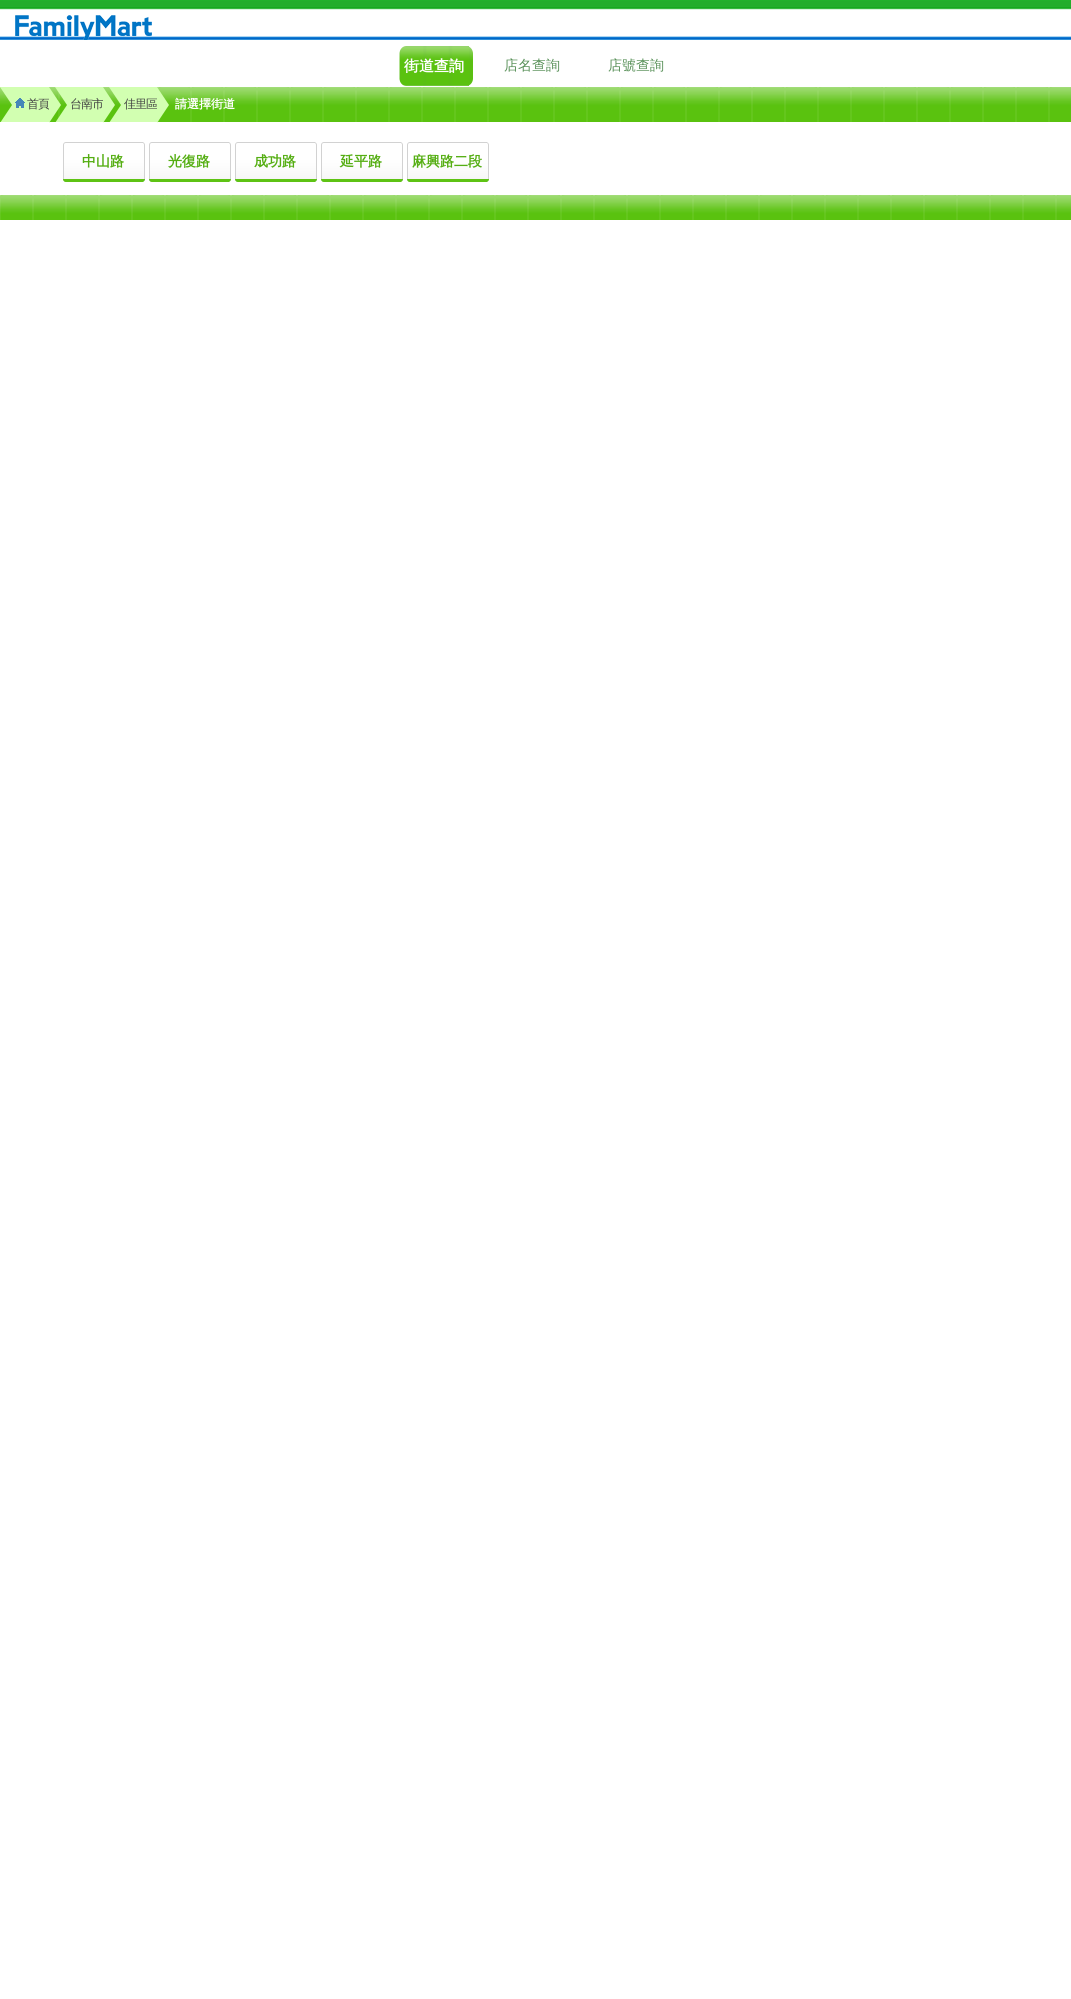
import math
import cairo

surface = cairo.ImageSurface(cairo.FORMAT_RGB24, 1071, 1999)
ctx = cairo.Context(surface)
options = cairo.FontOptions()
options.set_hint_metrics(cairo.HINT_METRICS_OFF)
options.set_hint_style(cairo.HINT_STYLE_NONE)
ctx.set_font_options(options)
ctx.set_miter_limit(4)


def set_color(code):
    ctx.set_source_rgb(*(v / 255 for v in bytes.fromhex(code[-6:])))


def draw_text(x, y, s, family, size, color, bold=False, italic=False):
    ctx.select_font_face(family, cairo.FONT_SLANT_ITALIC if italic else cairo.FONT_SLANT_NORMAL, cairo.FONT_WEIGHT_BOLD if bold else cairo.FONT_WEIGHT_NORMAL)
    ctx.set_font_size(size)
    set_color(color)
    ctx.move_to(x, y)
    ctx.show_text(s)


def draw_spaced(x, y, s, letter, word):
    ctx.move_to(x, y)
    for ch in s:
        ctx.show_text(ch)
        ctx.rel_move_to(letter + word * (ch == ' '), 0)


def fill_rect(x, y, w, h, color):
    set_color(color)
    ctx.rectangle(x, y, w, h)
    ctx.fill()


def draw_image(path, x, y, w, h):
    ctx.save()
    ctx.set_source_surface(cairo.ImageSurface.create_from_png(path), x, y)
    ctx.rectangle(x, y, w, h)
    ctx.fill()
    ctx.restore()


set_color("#ffffff")
ctx.paint()
draw_image("assets/img1.png", 0, 0, 1071, 40)
draw_image("assets/img2.png", 15, 15, 137, 25)
draw_image("assets/img3.png", 469, 46, 4, 40)
draw_image("assets/img4.png", 399, 46, 70, 40)
draw_text(404, 71, "街道查詢", "WenQuanYi Zen Hei", 15, "#ffffff", bold=True)
draw_text(504, 70, "店名查詢", "WenQuanYi Zen Hei Medium", 14, "#599159")
draw_text(608, 70, "店號查詢", "WenQuanYi Zen Hei Medium", 14, "#599159")
draw_image("assets/img5.png", 0, 87, 1071, 35)
fill_rect(12, 87, 37, 35, "#d2ffb1")
ctx.new_path()
ctx.move_to(0, 87)
ctx.line_to(12, 87)
ctx.line_to(12, 105)
ctx.close_path()
ctx.fill()
ctx.save()
ctx.rectangle(0, 87, 1071, 35)
ctx.clip()
ctx.new_path()
ctx.move_to(12, 123)
ctx.line_to(0, 123)
ctx.line_to(12, 105)
ctx.close_path()
ctx.fill()
ctx.restore()
draw_image("assets/img6.png", 15, 98, 10, 10)
ctx.set_font_size(12)
set_color("#444444")
draw_spaced(27, 108, "首頁", -1, 0)
set_color("#d2ffb1")
ctx.new_path()
ctx.move_to(49, 123)
ctx.line_to(49, 87)
ctx.line_to(61, 105)
ctx.close_path()
ctx.fill()
fill_rect(67, 87, 36, 35, "#d2ffb1")
ctx.new_path()
ctx.move_to(55, 87)
ctx.line_to(67, 87)
ctx.line_to(67, 105)
ctx.close_path()
ctx.fill()
ctx.save()
ctx.rectangle(0, 87, 1071, 35)
ctx.clip()
ctx.new_path()
ctx.move_to(67, 123)
ctx.line_to(55, 123)
ctx.line_to(67, 105)
ctx.close_path()
ctx.fill()
ctx.restore()
set_color("#444444")
draw_spaced(70, 108, "台南市", -1, 0)
set_color("#d2ffb1")
ctx.new_path()
ctx.move_to(103, 123)
ctx.line_to(103, 87)
ctx.line_to(115, 105)
ctx.close_path()
ctx.fill()
fill_rect(121, 87, 36, 35, "#d2ffb1")
ctx.new_path()
ctx.move_to(109, 87)
ctx.line_to(121, 87)
ctx.line_to(121, 105)
ctx.close_path()
ctx.fill()
ctx.save()
ctx.rectangle(0, 87, 1071, 35)
ctx.clip()
ctx.new_path()
ctx.move_to(121, 123)
ctx.line_to(109, 123)
ctx.line_to(121, 105)
ctx.close_path()
ctx.fill()
ctx.restore()
set_color("#444444")
draw_spaced(124, 108, "佳里區", -1, 0)
set_color("#d2ffb1")
ctx.new_path()
ctx.move_to(157, 123)
ctx.line_to(157, 87)
ctx.line_to(169, 105)
ctx.close_path()
ctx.fill()
draw_text(175, 108, "請選擇街道", "WenQuanYi Zen Hei", 12, "#ffffff", bold=True)
draw_image("assets/img7.png", 143, 142, 2, 40)
draw_image("assets/img8.png", 63, 142, 80, 40)
draw_text(82, 166, "中山路", "WenQuanYi Zen Hei", 14, "#55ae13", bold=True)
draw_image("assets/img7.png", 229, 142, 2, 40)
draw_image("assets/img8.png", 149, 142, 80, 40)
draw_text(168, 166, "光復路", "WenQuanYi Zen Hei", 14, "#55ae13", bold=True)
draw_image("assets/img7.png", 315, 142, 2, 40)
draw_image("assets/img8.png", 235, 142, 80, 40)
draw_text(254, 166, "成功路", "WenQuanYi Zen Hei", 14, "#55ae13", bold=True)
draw_image("assets/img7.png", 401, 142, 2, 40)
draw_image("assets/img8.png", 321, 142, 80, 40)
draw_text(340, 166, "延平路", "WenQuanYi Zen Hei", 14, "#55ae13", bold=True)
draw_image("assets/img7.png", 487, 142, 2, 40)
draw_image("assets/img8.png", 407, 142, 80, 40)
draw_text(412, 166, "麻興路二段", "WenQuanYi Zen Hei", 14, "#55ae13", bold=True)
draw_image("assets/img9.png", 0, 195, 1071, 25)
surface.write_to_png("output.png")
